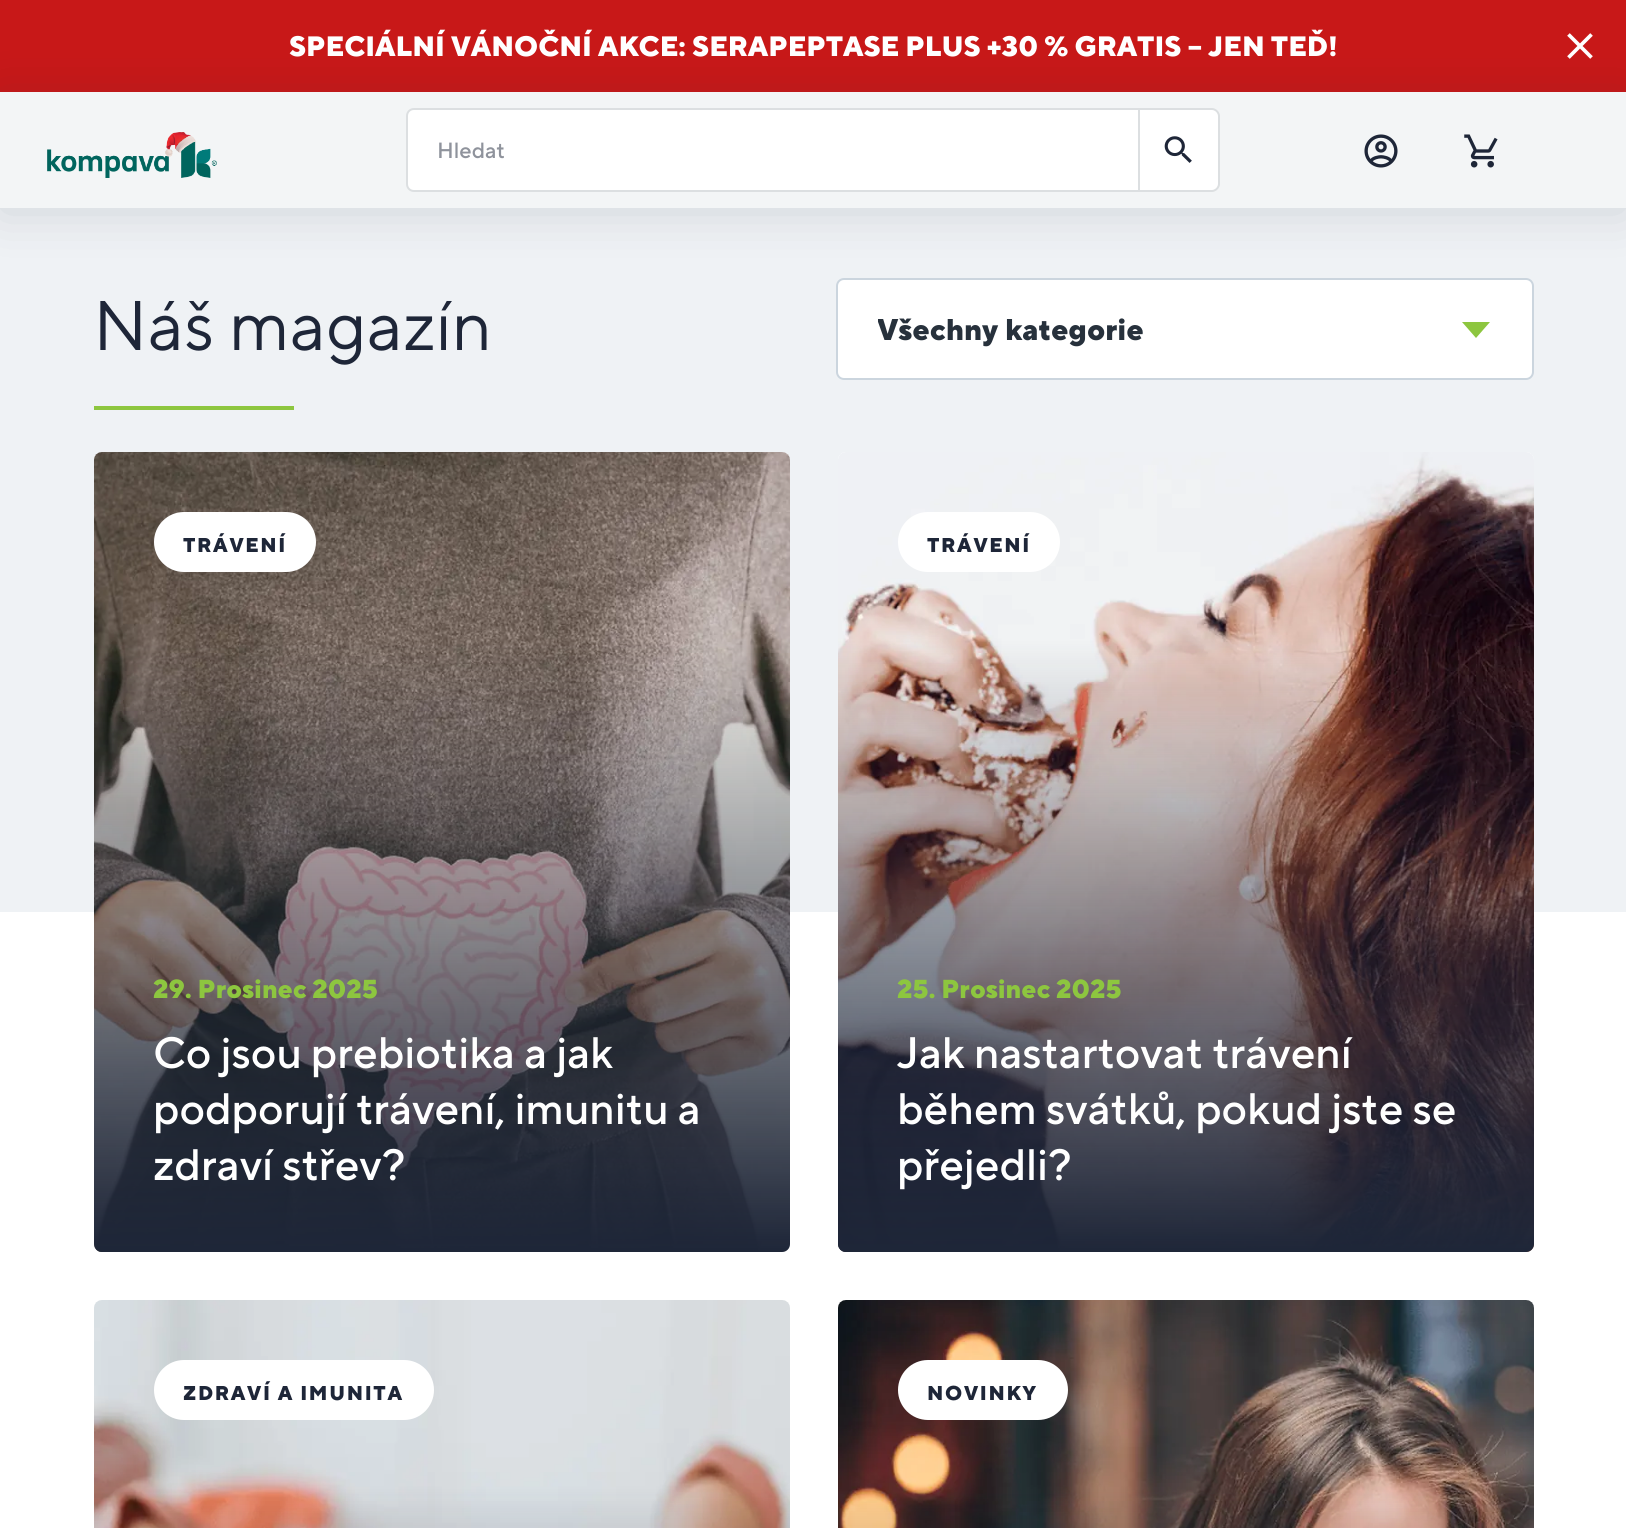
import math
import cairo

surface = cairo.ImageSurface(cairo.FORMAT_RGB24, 1626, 1528)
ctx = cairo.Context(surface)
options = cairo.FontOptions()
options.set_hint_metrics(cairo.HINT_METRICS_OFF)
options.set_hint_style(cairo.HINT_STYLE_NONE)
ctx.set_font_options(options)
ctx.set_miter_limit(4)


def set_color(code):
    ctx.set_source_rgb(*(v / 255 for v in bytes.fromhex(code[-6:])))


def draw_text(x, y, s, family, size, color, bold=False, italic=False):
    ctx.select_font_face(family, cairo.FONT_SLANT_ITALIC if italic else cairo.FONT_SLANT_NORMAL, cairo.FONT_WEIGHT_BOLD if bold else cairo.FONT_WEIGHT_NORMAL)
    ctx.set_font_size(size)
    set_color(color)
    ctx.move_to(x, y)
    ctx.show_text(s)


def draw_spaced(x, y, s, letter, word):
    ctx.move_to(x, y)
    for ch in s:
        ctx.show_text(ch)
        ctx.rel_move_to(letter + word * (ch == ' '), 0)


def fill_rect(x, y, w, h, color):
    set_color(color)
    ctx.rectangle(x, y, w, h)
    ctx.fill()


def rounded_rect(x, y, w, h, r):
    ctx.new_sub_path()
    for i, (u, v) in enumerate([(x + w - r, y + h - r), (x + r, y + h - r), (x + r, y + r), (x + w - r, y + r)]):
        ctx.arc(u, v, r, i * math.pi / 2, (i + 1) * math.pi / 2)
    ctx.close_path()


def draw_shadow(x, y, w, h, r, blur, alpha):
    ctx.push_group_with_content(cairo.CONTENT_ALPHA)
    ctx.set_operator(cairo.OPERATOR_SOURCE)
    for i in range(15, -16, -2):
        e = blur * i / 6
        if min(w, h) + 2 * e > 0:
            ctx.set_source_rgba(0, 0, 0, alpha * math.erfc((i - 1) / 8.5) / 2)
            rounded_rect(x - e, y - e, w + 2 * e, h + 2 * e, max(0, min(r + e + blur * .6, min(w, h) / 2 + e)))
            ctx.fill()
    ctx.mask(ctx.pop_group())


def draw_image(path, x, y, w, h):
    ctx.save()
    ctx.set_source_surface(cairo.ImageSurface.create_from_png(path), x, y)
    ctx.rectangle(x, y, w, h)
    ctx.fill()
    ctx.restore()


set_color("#ffffff")
ctx.paint()
fill_rect(0, 0, 1626, 92, "#c81818")
draw_text(289, 56, "SPECIÁLNÍ VÁNOČNÍ AKCE: SERAPEPTASE PLUS +30 % GRATIS – JEN TEĎ!", "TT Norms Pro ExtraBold", 28, "#ffffff")
draw_image("assets/img1.png", 1567, 33, 26, 26)
fill_rect(0, 208, 1626, 704, "#eff2f5")
set_color("#ffffff")
rounded_rect(837, 279, 696, 100, 7)
ctx.fill_preserve()
set_color("#cbd5de")
ctx.stroke()
set_color("#1e2638")
draw_shadow(0, 96, 1626, 116, 0, 25, 0.15)
fill_rect(0, 92, 1626, 116, "#f3f5f6")
draw_image("assets/img2.png", 47, 132, 170, 46)
set_color("#ffffff")
ctx.new_path()
ctx.move_to(414, 109)
ctx.line_to(1139, 109)
ctx.line_to(1139, 191)
ctx.line_to(414, 191)
ctx.curve_to(410, 191, 407, 188, 407, 184)
ctx.line_to(407, 116)
ctx.curve_to(407, 112, 410, 109, 414, 109)
ctx.close_path()
ctx.fill_preserve()
set_color("#dcdfe1")
ctx.stroke()
draw_text(437, 158, "Hledat", "TT Norms Pro Medium", 22, "#8f939c")
set_color("#ffffff")
ctx.new_path()
ctx.move_to(1140, 110)
ctx.line_to(1212, 110)
ctx.curve_to(1215.5, 110, 1218, 112.5, 1218, 116)
ctx.line_to(1218, 184)
ctx.curve_to(1218, 187.5, 1215.5, 190, 1212, 190)
ctx.line_to(1140, 190)
ctx.close_path()
ctx.fill()
draw_image("assets/img3.png", 1164, 136, 28, 27)
set_color("#dcdfe1")
ctx.set_fill_rule(cairo.FILL_RULE_EVEN_ODD)
ctx.new_path()
ctx.move_to(1140, 108)
ctx.line_to(1212, 108)
ctx.curve_to(1216, 108, 1220, 112, 1220, 116)
ctx.line_to(1220, 184)
ctx.curve_to(1220, 188, 1216, 192, 1212, 192)
ctx.line_to(1140, 192)
ctx.close_path()
ctx.move_to(1140, 110)
ctx.line_to(1212, 110)
ctx.curve_to(1215, 110, 1218, 113, 1218, 116)
ctx.line_to(1218, 184)
ctx.curve_to(1218, 187, 1215, 190, 1212, 190)
ctx.line_to(1140, 190)
ctx.close_path()
ctx.fill()
draw_image("assets/img4.png", 1364, 134, 34, 34)
draw_image("assets/img5.png", 1464, 134, 34, 34)
draw_text(93, 350, "Náš magazín", "TT Norms Pro", 70, "#1e2638")
fill_rect(94, 406, 200, 4, "#8dc63f")
ctx.save()
ctx.set_fill_rule(cairo.FILL_RULE_WINDING)
ctx.rectangle(878, 308, 564, 42)
ctx.clip()
draw_text(877, 340, "Všechny kategorie", "TT Norms Pro ExtraBold", 30, "#27313c")
ctx.restore()
ctx.set_fill_rule(cairo.FILL_RULE_WINDING)
ctx.new_path()
ctx.move_to(1462, 322)
ctx.line_to(1490, 322)
ctx.line_to(1476, 338)
ctx.close_path()
ctx.fill()
set_color("#ffffff")
rounded_rect(94, 452, 696, 800, 8)
ctx.fill()
draw_image("assets/img6.png", 94, 452, 696, 800)
rounded_rect(154, 512, 162, 60, 30)
ctx.fill()
ctx.select_font_face("TT Norms Pro ExtraBold")
ctx.set_font_size(20)
set_color("#1e2638")
draw_spaced(183, 552, "TRÁVENÍ", 1.7, 0)
gradient = cairo.LinearGradient(442, 640, 442, 1252)
gradient.add_color_stop_rgba(0, 0.118, 0.149, 0.22, 0)
gradient.add_color_stop_rgba(1, 0.118, 0.149, 0.22, 1)
ctx.set_source(gradient)
ctx.new_path()
ctx.move_to(94, 640)
ctx.line_to(790, 640)
ctx.line_to(790, 1244)
ctx.curve_to(790, 1248.5, 786.5, 1252, 782, 1252)
ctx.line_to(102, 1252)
ctx.curve_to(97.5, 1252, 94, 1248.5, 94, 1244)
ctx.close_path()
ctx.fill()
draw_text(153, 998, "29. Prosinec 2025", "TT Norms Pro ExtraBold", 26, "#8dc63f")
draw_text(153, 1068, "Co jsou prebiotika a jak", "TT Norms Pro Medium", 44, "#ffffff")
draw_text(153, 1124, "podporují trávení, imunitu a", "TT Norms Pro Medium", 44, "#ffffff")
draw_text(153, 1180, "zdraví střev?", "TT Norms Pro Medium", 44, "#ffffff")
rounded_rect(838, 452, 696, 800, 8)
ctx.fill()
draw_image("assets/img7.png", 838, 452, 696, 800)
rounded_rect(898, 512, 162, 60, 30)
ctx.fill()
ctx.select_font_face("TT Norms Pro ExtraBold")
ctx.set_font_size(20)
set_color("#1e2638")
draw_spaced(927, 552, "TRÁVENÍ", 1.7, 0)
gradient = cairo.LinearGradient(1186, 640, 1186, 1252)
gradient.add_color_stop_rgba(0, 0.118, 0.149, 0.22, 0)
gradient.add_color_stop_rgba(1, 0.118, 0.149, 0.22, 1)
ctx.set_source(gradient)
ctx.new_path()
ctx.move_to(838, 640)
ctx.line_to(1534, 640)
ctx.line_to(1534, 1244)
ctx.curve_to(1534, 1248.5, 1530.5, 1252, 1526, 1252)
ctx.line_to(846, 1252)
ctx.curve_to(841.5, 1252, 838, 1248.5, 838, 1244)
ctx.close_path()
ctx.fill()
draw_text(897, 998, "25. Prosinec 2025", "TT Norms Pro ExtraBold", 26, "#8dc63f")
draw_text(897, 1068, "Jak nastartovat trávení", "TT Norms Pro Medium", 44, "#ffffff")
draw_text(897, 1124, "během svátků, pokud jste se", "TT Norms Pro Medium", 44, "#ffffff")
draw_text(897, 1180, "přejedli?", "TT Norms Pro Medium", 44, "#ffffff")
draw_image("assets/img8.png", 94, 1300, 696, 228)
rounded_rect(154, 1360, 280, 60, 30)
ctx.fill()
ctx.select_font_face("TT Norms Pro ExtraBold")
ctx.set_font_size(20)
set_color("#1e2638")
draw_spaced(183, 1400, "ZDRAVÍ A IMUNITA", 1.7, 0)
draw_image("assets/img9.png", 838, 1300, 696, 228)
set_color("#ffffff")
rounded_rect(898, 1360, 170, 60, 30)
ctx.fill()
set_color("#1e2638")
draw_spaced(927, 1400, "NOVINKY", 1.7, 0)
surface.write_to_png("output.png")
